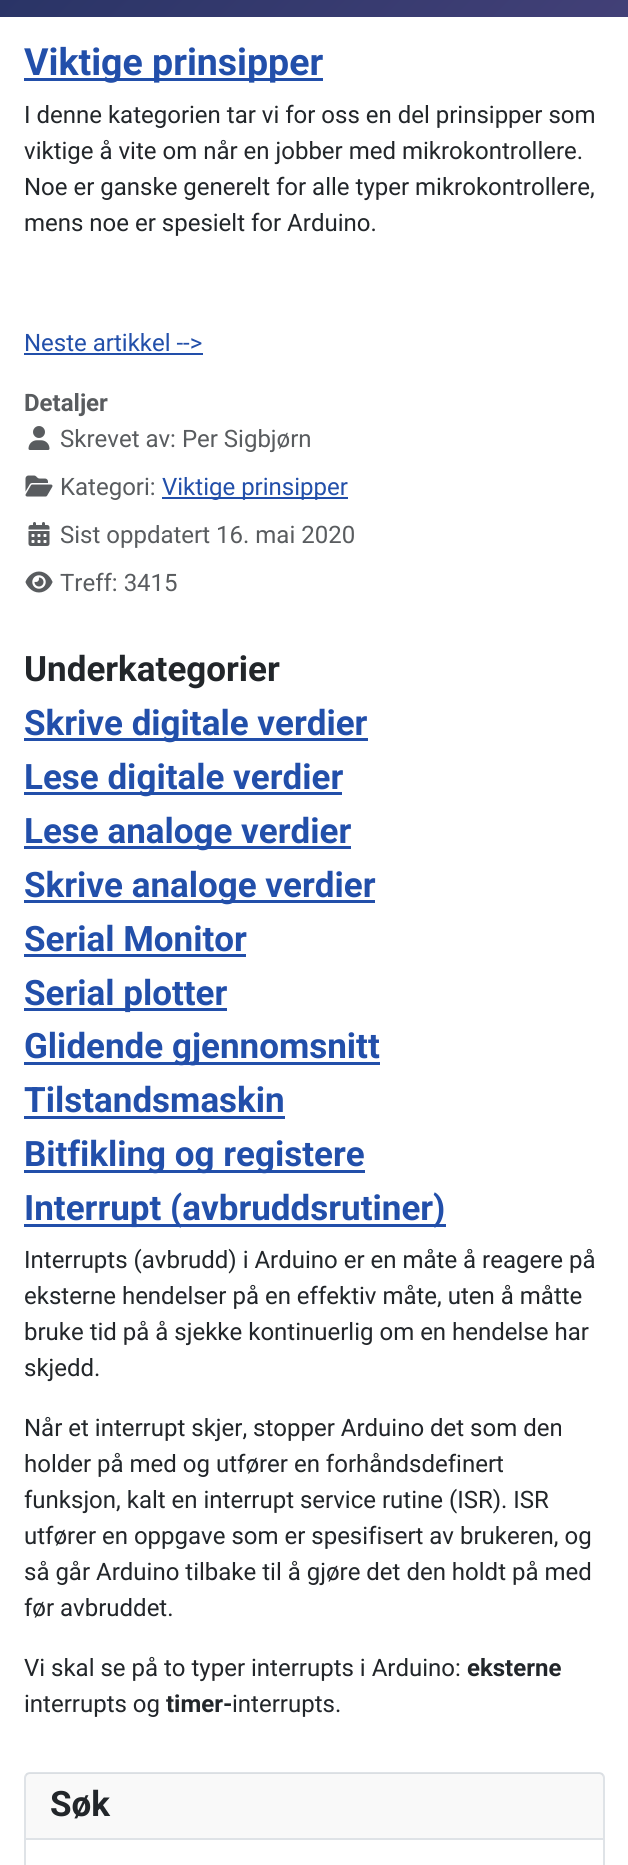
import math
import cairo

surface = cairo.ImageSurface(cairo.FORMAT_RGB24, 628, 1865)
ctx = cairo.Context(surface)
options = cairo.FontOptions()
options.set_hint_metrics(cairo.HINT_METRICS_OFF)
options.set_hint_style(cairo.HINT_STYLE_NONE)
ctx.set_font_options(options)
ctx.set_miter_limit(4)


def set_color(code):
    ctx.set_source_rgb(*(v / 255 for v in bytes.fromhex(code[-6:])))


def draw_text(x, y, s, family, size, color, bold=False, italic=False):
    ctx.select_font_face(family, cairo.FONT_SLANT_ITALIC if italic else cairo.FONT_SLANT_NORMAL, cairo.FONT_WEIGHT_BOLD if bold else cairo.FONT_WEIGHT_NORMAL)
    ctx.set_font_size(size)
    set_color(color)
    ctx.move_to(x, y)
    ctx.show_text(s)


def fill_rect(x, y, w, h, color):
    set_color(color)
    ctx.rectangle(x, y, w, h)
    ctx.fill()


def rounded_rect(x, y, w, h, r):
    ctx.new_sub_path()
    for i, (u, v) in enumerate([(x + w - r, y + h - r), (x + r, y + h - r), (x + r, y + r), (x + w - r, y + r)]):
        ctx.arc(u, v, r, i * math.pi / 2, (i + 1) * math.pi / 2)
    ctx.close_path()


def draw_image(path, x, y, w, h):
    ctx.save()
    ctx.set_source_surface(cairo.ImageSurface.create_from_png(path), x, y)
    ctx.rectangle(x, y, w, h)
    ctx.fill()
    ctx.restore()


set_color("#ffffff")
ctx.paint()
gradient = cairo.LinearGradient(-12, -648, 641, 4.5)
gradient.add_color_stop_rgba(0, 0.067, 0.157, 0.333, 1)
gradient.add_color_stop_rgba(1, 0.259, 0.251, 0.467, 1)
ctx.set_source(gradient)
ctx.rectangle(0, 0, 628, 17)
ctx.fill()
fill_rect(24, 78, 299, 3, "#224faa")
draw_text(24, 75, "Viktige prinsipper", "Roboto", 37.5, "#224faa", bold=True)
draw_text(24, 123, "I denne kategorien tar vi for oss en del prinsipper som", "Roboto", 24, "#22262a")
draw_text(24, 159, "viktige å vite om når en jobber med mikrokontrollere.", "Roboto", 24, "#22262a")
draw_text(24, 195, "Noe er ganske generelt for alle typer mikrokontrollere,", "Roboto", 24, "#22262a")
draw_text(24, 231, "mens noe er spesielt for Arduino.", "Roboto", 24, "#22262a")
draw_text(24, 351, "Neste artikkel -->", "Roboto", 24, "#224faa")
fill_rect(24, 353, 179, 2, "#224faa")
draw_text(24, 411, "Detaljer", "Roboto", 24, "#595c5f", bold=True)
draw_image("assets/img1.png", 28, 426, 22, 24)
draw_text(60, 447, "Skrevet av: Per Sigbjørn", "Roboto", 24, "#595c5f")
draw_image("assets/img2.png", 25, 475, 28, 22)
draw_text(60, 495, "Kategori:", "Roboto", 24, "#595c5f")
fill_rect(162, 497, 186, 2, "#224faa")
draw_text(162, 495, "Viktige prinsipper", "Roboto", 24, "#224faa")
draw_image("assets/img3.png", 28, 522, 22, 24)
draw_text(60, 543, "Sist oppdatert 16. mai 2020", "Roboto", 24, "#595c5f")
draw_image("assets/img4.png", 25, 571, 28, 22)
draw_text(60, 591, "Treff: 3415", "Roboto", 24, "#595c5f")
draw_text(24, 681, "Underkategorier", "Roboto", 35, "#22262a", bold=True)
fill_rect(24, 738, 344, 3, "#224faa")
draw_text(24, 735, "Skrive digitale verdier", "Roboto", 35, "#224faa", bold=True)
fill_rect(24, 792, 318, 3, "#224faa")
draw_text(24, 789, "Lese digitale verdier", "Roboto", 35, "#224faa", bold=True)
fill_rect(24, 846, 327, 3, "#224faa")
draw_text(24, 843, "Lese analoge verdier", "Roboto", 35, "#224faa", bold=True)
fill_rect(24, 900, 351, 3, "#224faa")
draw_text(24, 897, "Skrive analoge verdier", "Roboto", 35, "#224faa", bold=True)
draw_text(24, 951, "Serial Monitor", "Roboto", 35, "#224faa", bold=True)
fill_rect(24, 954, 222, 3, "#224faa")
fill_rect(24, 1008, 203, 3, "#224faa")
draw_text(24, 1005, "Serial plotter", "Roboto", 35, "#224faa", bold=True)
fill_rect(24, 1062, 356, 3, "#224faa")
draw_text(24, 1058, "Glidende gjennomsnitt", "Roboto", 35, "#224faa", bold=True)
draw_text(24, 1112, "Tilstandsmaskin", "Roboto", 35, "#224faa", bold=True)
fill_rect(24, 1116, 261, 3, "#224faa")
fill_rect(24, 1170, 341, 3, "#224faa")
draw_text(24, 1166, "Bitfikling og registere", "Roboto", 35, "#224faa", bold=True)
fill_rect(24, 1224, 422, 3, "#224faa")
draw_text(24, 1220, "Interrupt (avbruddsrutiner)", "Roboto", 35, "#224faa", bold=True)
draw_text(24, 1268, "Interrupts (avbrudd) i Arduino er en måte å reagere på", "Roboto", 24, "#22262a")
draw_text(24, 1304, "eksterne hendelser på en effektiv måte, uten å måtte", "Roboto", 24, "#22262a")
draw_text(24, 1340, "bruke tid på å sjekke kontinuerlig om en hendelse har", "Roboto", 24, "#22262a")
draw_text(24, 1376, "skjedd.", "Roboto", 24, "#22262a")
draw_text(24, 1436, "Når et interrupt skjer, stopper Arduino det som den", "Roboto", 24, "#22262a")
draw_text(24, 1472, "holder på med og utfører en forhåndsdefinert", "Roboto", 24, "#22262a")
draw_text(24, 1508, "funksjon, kalt en interrupt service rutine (ISR). ISR", "Roboto", 24, "#22262a")
draw_text(24, 1544, "utfører en oppgave som er spesifisert av brukeren, og", "Roboto", 24, "#22262a")
draw_text(24, 1580, "så går Arduino tilbake til å gjøre det den holdt på med", "Roboto", 24, "#22262a")
draw_text(24, 1616, "før avbruddet.", "Roboto", 24, "#22262a")
draw_text(24, 1676, "Vi skal se på to typer interrupts i Arduino:", "Roboto", 24, "#22262a")
draw_text(467, 1676, "eksterne", "Roboto", 24, "#22262a", bold=True)
draw_text(24, 1712, "interrupts og", "Roboto", 24, "#22262a")
draw_text(166, 1712, "timer-", "Roboto", 24, "#22262a", bold=True)
draw_text(232, 1712, "interrupts.", "Roboto", 24, "#22262a")
rounded_rect(25, 1773, 579, 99, 5)
set_color("#dfe3e7")
ctx.stroke()
ctx.set_source_rgba(0.133, 0.149, 0.165, 0.03)
ctx.rectangle(26, 1773, 577, 65)
ctx.fill()
fill_rect(26, 1838, 577, 2, "#dfe3e7")
draw_text(50, 1816, "Søk", "Roboto", 35, "#22262a", bold=True)
surface.write_to_png("output.png")
